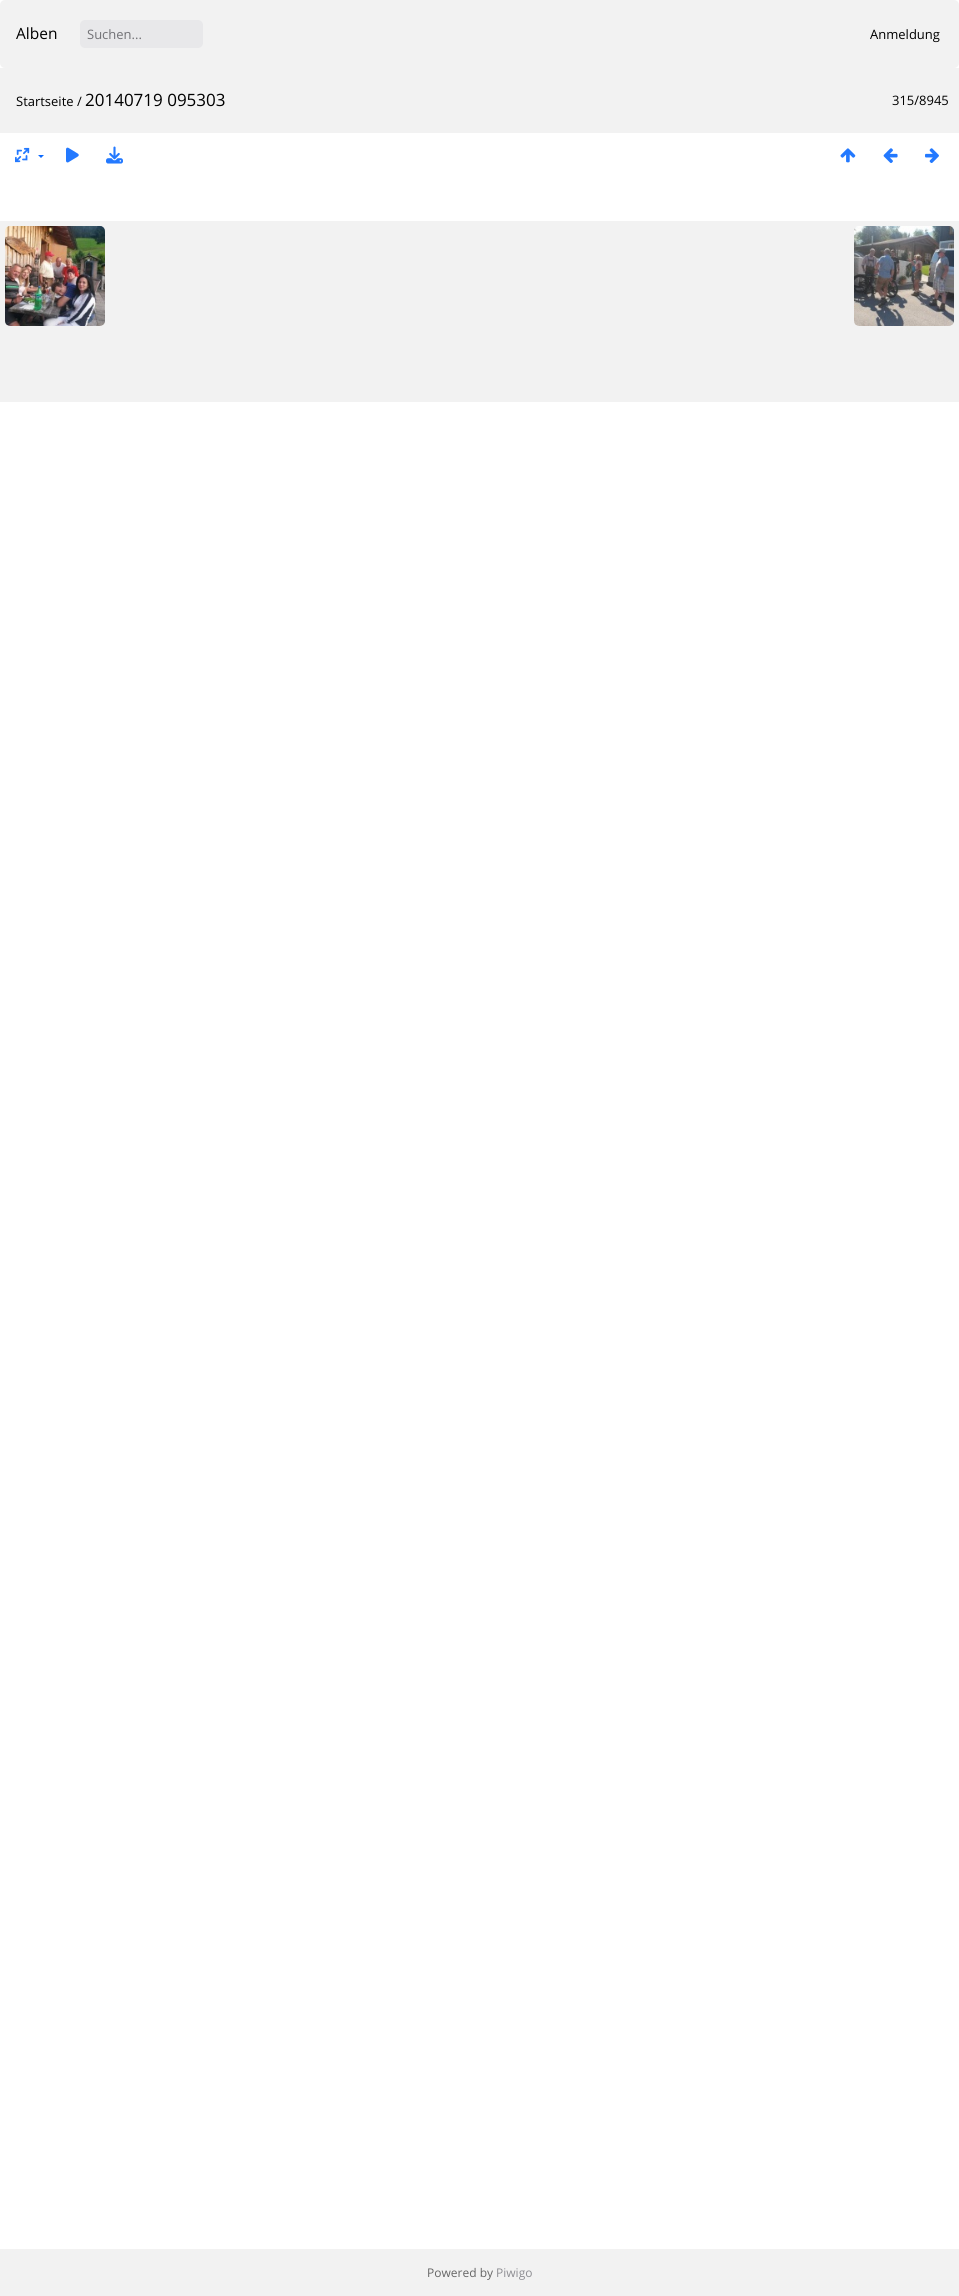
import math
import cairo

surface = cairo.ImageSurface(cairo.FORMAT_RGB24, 959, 2296)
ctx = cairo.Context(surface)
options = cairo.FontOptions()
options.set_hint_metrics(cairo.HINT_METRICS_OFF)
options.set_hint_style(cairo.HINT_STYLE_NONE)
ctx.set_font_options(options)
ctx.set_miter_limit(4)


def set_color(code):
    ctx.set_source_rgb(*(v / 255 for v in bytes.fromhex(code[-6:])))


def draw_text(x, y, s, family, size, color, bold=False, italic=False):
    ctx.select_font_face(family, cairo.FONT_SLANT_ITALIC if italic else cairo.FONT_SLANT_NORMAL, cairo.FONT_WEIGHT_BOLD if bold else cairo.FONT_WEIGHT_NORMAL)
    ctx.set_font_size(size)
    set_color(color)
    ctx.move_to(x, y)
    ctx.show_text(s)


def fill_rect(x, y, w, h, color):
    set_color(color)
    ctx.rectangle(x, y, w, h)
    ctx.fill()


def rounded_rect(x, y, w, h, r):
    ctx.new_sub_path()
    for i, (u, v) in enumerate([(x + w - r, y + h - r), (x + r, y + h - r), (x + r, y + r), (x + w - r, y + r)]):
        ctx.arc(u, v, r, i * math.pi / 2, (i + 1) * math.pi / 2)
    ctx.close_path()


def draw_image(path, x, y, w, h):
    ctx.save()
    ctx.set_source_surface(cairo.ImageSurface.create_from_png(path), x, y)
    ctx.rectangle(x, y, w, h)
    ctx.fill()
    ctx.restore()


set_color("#ffffff")
ctx.paint()
set_color("#f2f2f2")
rounded_rect(0, 0, 959, 68, 5)
ctx.fill()
draw_text(16, 39, "Alben", "Open Sans", 15.5, "#000000")
set_color("#e8e8ea")
rounded_rect(80, 20, 123, 28, 5)
ctx.fill()
draw_text(87, 39, "Suchen...", "Open Sans", 13, "#717175")
draw_text(870, 39, "Anmeldung", "Open Sans", 13, "#000000")
fill_rect(0, 68, 959, 65, "#f2f2f2")
draw_text(16, 106, "Startseite /", "Open Sans", 13, "#000000")
draw_text(85, 106, "20140719 095303", "Open Sans", 17, "#000000")
draw_text(892, 105, "315/8945", "Open Sans", 13, "#000000")
draw_image("assets/img1.png", 15, 147, 15, 16)
set_color("#0b6aff")
ctx.new_path()
ctx.move_to(38, 155)
ctx.line_to(44, 155)
ctx.line_to(41, 158)
ctx.close_path()
ctx.fill()
draw_image("assets/img2.png", 66, 147, 13, 16)
draw_image("assets/img3.png", 106, 146, 17, 18)
draw_image("assets/img4.png", 840, 148, 16, 15)
draw_image("assets/img5.png", 883, 148, 15, 15)
draw_image("assets/img6.png", 925, 148, 14, 15)
fill_rect(0, 221, 959, 181, "#f2f2f2")
draw_image("assets/img7.png", 5, 226, 100, 100)
draw_image("assets/img8.png", 854, 226, 100, 100)
fill_rect(0, 2249, 959, 47, "#f2f2f2")
draw_text(427, 2277, "Powered by", "Open Sans", 12, "#666666")
draw_text(496, 2277, "Piwigo", "Open Sans", 12, "#8e8e93")
surface.write_to_png("output.png")
